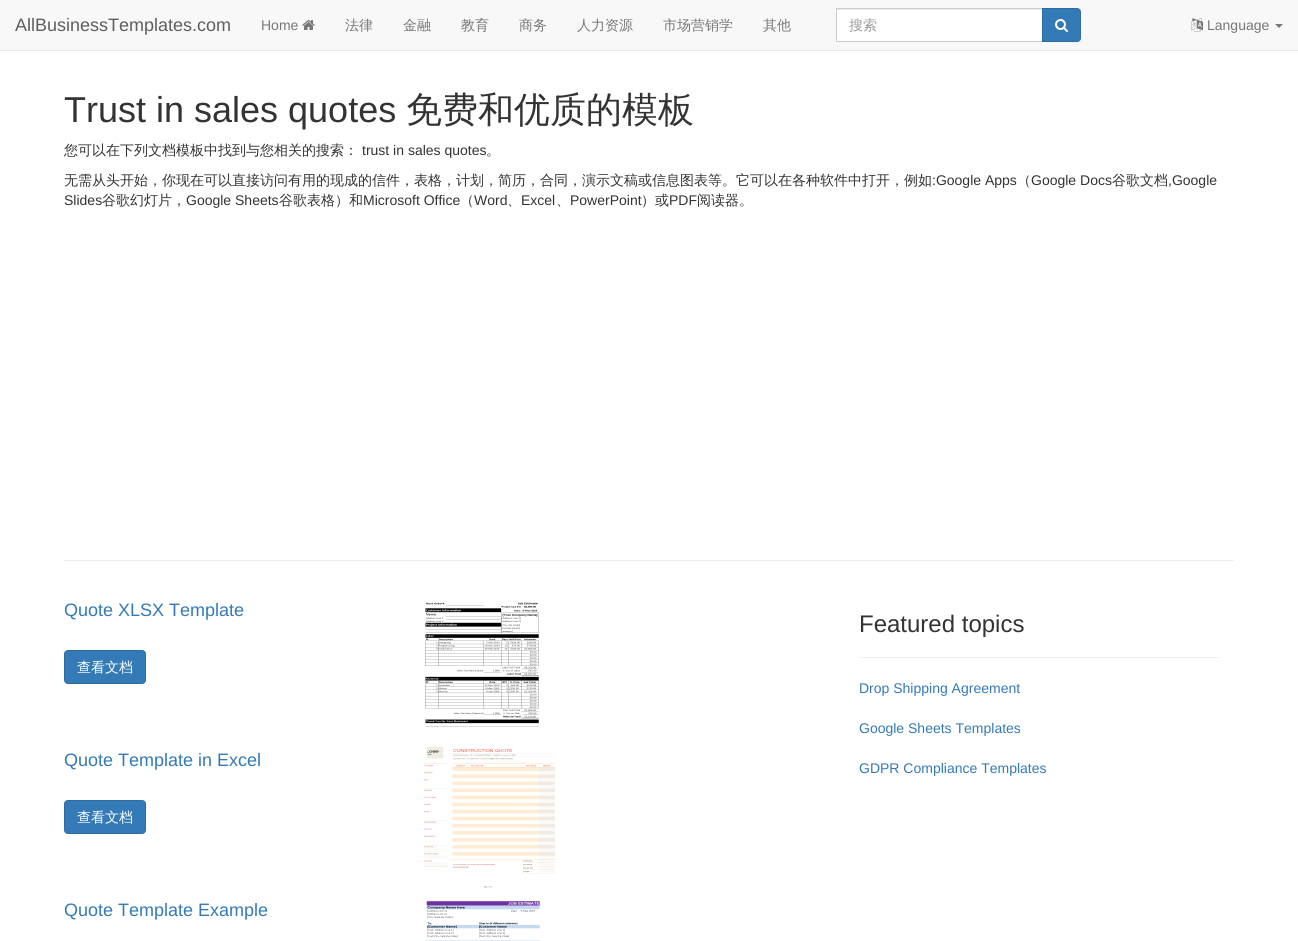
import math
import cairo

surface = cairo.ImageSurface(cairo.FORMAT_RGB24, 1298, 941)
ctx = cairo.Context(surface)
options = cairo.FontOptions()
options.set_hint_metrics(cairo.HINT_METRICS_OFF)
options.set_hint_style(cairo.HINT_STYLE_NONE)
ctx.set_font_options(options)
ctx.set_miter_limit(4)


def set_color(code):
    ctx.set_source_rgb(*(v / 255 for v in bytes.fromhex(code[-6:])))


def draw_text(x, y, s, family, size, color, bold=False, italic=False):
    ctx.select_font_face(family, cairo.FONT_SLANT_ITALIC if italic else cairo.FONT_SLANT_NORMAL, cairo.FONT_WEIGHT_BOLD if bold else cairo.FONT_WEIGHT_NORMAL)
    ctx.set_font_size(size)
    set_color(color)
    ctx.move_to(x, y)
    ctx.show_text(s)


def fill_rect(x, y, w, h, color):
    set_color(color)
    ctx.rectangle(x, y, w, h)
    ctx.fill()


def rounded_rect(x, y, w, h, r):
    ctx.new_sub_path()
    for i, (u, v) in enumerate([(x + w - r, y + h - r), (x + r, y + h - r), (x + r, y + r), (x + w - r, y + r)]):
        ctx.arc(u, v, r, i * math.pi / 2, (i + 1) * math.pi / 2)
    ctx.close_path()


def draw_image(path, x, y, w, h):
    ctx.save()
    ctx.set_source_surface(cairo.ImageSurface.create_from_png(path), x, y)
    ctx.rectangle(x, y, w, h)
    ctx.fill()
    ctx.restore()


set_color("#ffffff")
ctx.paint()
fill_rect(0, 0, 1298, 50, "#f8f8f8")
fill_rect(0, 50, 1298, 1, "#e7e7e7")
draw_text(15, 31, "AllBusinessTemplates.com", "Liberation Sans", 18, "#5e5e5e")
draw_text(261, 30, "Home", "Liberation Sans", 14, "#777777")
draw_image("assets/img1.png", 302, 20, 13, 10)
draw_text(345, 30, "法律", "WenQuanYi Zen Hei Medium", 14, "#777777")
draw_text(403, 30, "金融", "WenQuanYi Zen Hei Medium", 14, "#777777")
draw_text(461, 30, "教育", "WenQuanYi Zen Hei Medium", 14, "#777777")
draw_text(519, 30, "商务", "WenQuanYi Zen Hei Medium", 14, "#777777")
draw_text(577, 30, "人力资源", "WenQuanYi Zen Hei Medium", 14, "#777777")
draw_text(663, 30, "市场营销学", "WenQuanYi Zen Hei Medium", 14, "#777777")
draw_text(763, 30, "其他", "WenQuanYi Zen Hei Medium", 14, "#777777")
fill_rect(837, 10, 205, 31, "#ffffff")
fill_rect(837, 9, 205, 1, "#ececec")
ctx.rectangle(836.5, 8.5, 206, 33)
set_color("#cccccc")
ctx.set_line_width(1)
ctx.stroke()
draw_text(849, 30, "搜索", "WenQuanYi Zen Hei Medium", 14, "#999999")
set_color("#337ab7")
ctx.new_path()
ctx.move_to(1042.5, 8.5)
ctx.line_to(1077, 8.5)
ctx.curve_to(1079, 8.5, 1080.5, 10, 1080.5, 12)
ctx.line_to(1080.5, 38)
ctx.curve_to(1080.5, 40, 1079, 41.5, 1077, 41.5)
ctx.line_to(1042.5, 41.5)
ctx.close_path()
ctx.fill_preserve()
set_color("#2e6da4")
ctx.stroke()
draw_image("assets/img2.png", 1055, 19, 13, 13)
draw_image("assets/img3.png", 1191, 18, 12, 14)
draw_text(1207, 30, "Language", "Liberation Sans", 14, "#777777")
ctx.new_path()
ctx.move_to(1275, 24)
ctx.line_to(1283, 24)
ctx.line_to(1279, 28)
ctx.close_path()
ctx.fill()
draw_text(64, 122, "Trust in sales quotes", "Liberation Sans", 36, "#333333")
draw_text(406, 122, "免费和优质的模板", "WenQuanYi Zen Hei Medium", 36, "#333333")
draw_text(64, 155, "您可以在下列文档模板中找到与您相关的搜索：", "WenQuanYi Zen Hei Medium", 14, "#333333")
draw_text(362, 155, "trust in sales quotes", "Liberation Sans", 14, "#333333")
draw_text(486, 155, "。", "WenQuanYi Zen Hei Medium", 14, "#333333")
draw_text(64, 185, "无需从头开始，你现在可以直接访问有用的现成的信件，表格，计划，简历，合同，演示文稿或信息图表等。它可以在各种软件中打开，例如", "WenQuanYi Zen Hei Medium", 14, "#333333")
draw_text(932, 185, ":Google Apps", "Liberation Sans", 14, "#333333")
draw_text(1017, 185, "（", "WenQuanYi Zen Hei Medium", 14, "#333333")
draw_text(1031, 185, "Google Docs", "Liberation Sans", 14, "#333333")
draw_text(1112, 185, "谷歌文档", "WenQuanYi Zen Hei Medium", 14, "#333333")
draw_text(1168, 185, ",Google", "Liberation Sans", 14, "#333333")
draw_text(64, 205, "Slides", "Liberation Sans", 14, "#333333")
draw_text(102, 205, "谷歌幻灯片，", "WenQuanYi Zen Hei Medium", 14, "#333333")
draw_text(186, 205, "Google Sheets", "Liberation Sans", 14, "#333333")
draw_text(279, 205, "谷歌表格）和", "WenQuanYi Zen Hei Medium", 14, "#333333")
draw_text(363, 205, "Microsoft Office", "Liberation Sans", 14, "#333333")
draw_text(460, 205, "（", "WenQuanYi Zen Hei Medium", 14, "#333333")
draw_text(474, 205, "Word", "Liberation Sans", 14, "#333333")
draw_text(507, 205, "、", "WenQuanYi Zen Hei Medium", 14, "#333333")
draw_text(521, 205, "Excel", "Liberation Sans", 14, "#333333")
draw_text(556, 205, "、", "WenQuanYi Zen Hei Medium", 14, "#333333")
draw_text(570, 205, "PowerPoint", "Liberation Sans", 14, "#333333")
draw_text(641, 205, "）或", "WenQuanYi Zen Hei Medium", 14, "#333333")
draw_text(669, 205, "PDF", "Liberation Sans", 14, "#333333")
draw_text(697, 205, "阅读器。", "WenQuanYi Zen Hei Medium", 14, "#333333")
fill_rect(64, 560, 1170, 1, "#eeeeee")
draw_text(64, 616, "Quote XLSX Template", "Liberation Sans", 18, "#337ab7")
rounded_rect(64.5, 650.5, 81, 33, 3.5)
ctx.fill_preserve()
set_color("#2e6da4")
ctx.stroke()
draw_text(77, 672, "查看文档", "WenQuanYi Zen Hei Medium", 14, "#ffffff")
draw_image("assets/img4.png", 425, 602, 114, 125)
draw_text(64, 766, "Quote Template in Excel", "Liberation Sans", 18, "#337ab7")
rounded_rect(64.5, 800.5, 81, 33, 3.5)
ctx.fill_preserve()
set_color("#2e6da4")
ctx.stroke()
draw_text(77, 822, "查看文档", "WenQuanYi Zen Hei Medium", 14, "#ffffff")
draw_image("assets/img5.png", 423, 746, 132, 142)
draw_text(64, 916, "Quote Template Example", "Liberation Sans", 18, "#337ab7")
draw_image("assets/img6.png", 426, 901, 114, 40)
draw_text(859, 632, "Featured topics", "Liberation Sans", 24, "#333333")
fill_rect(859, 657, 360, 1, "#eeeeee")
draw_text(859, 693, "Drop Shipping Agreement", "Liberation Sans", 14, "#337ab7")
draw_text(859, 733, "Google Sheets Templates", "Liberation Sans", 14, "#337ab7")
draw_text(859, 773, "GDPR Compliance Templates", "Liberation Sans", 14, "#337ab7")
surface.write_to_png("output.png")
